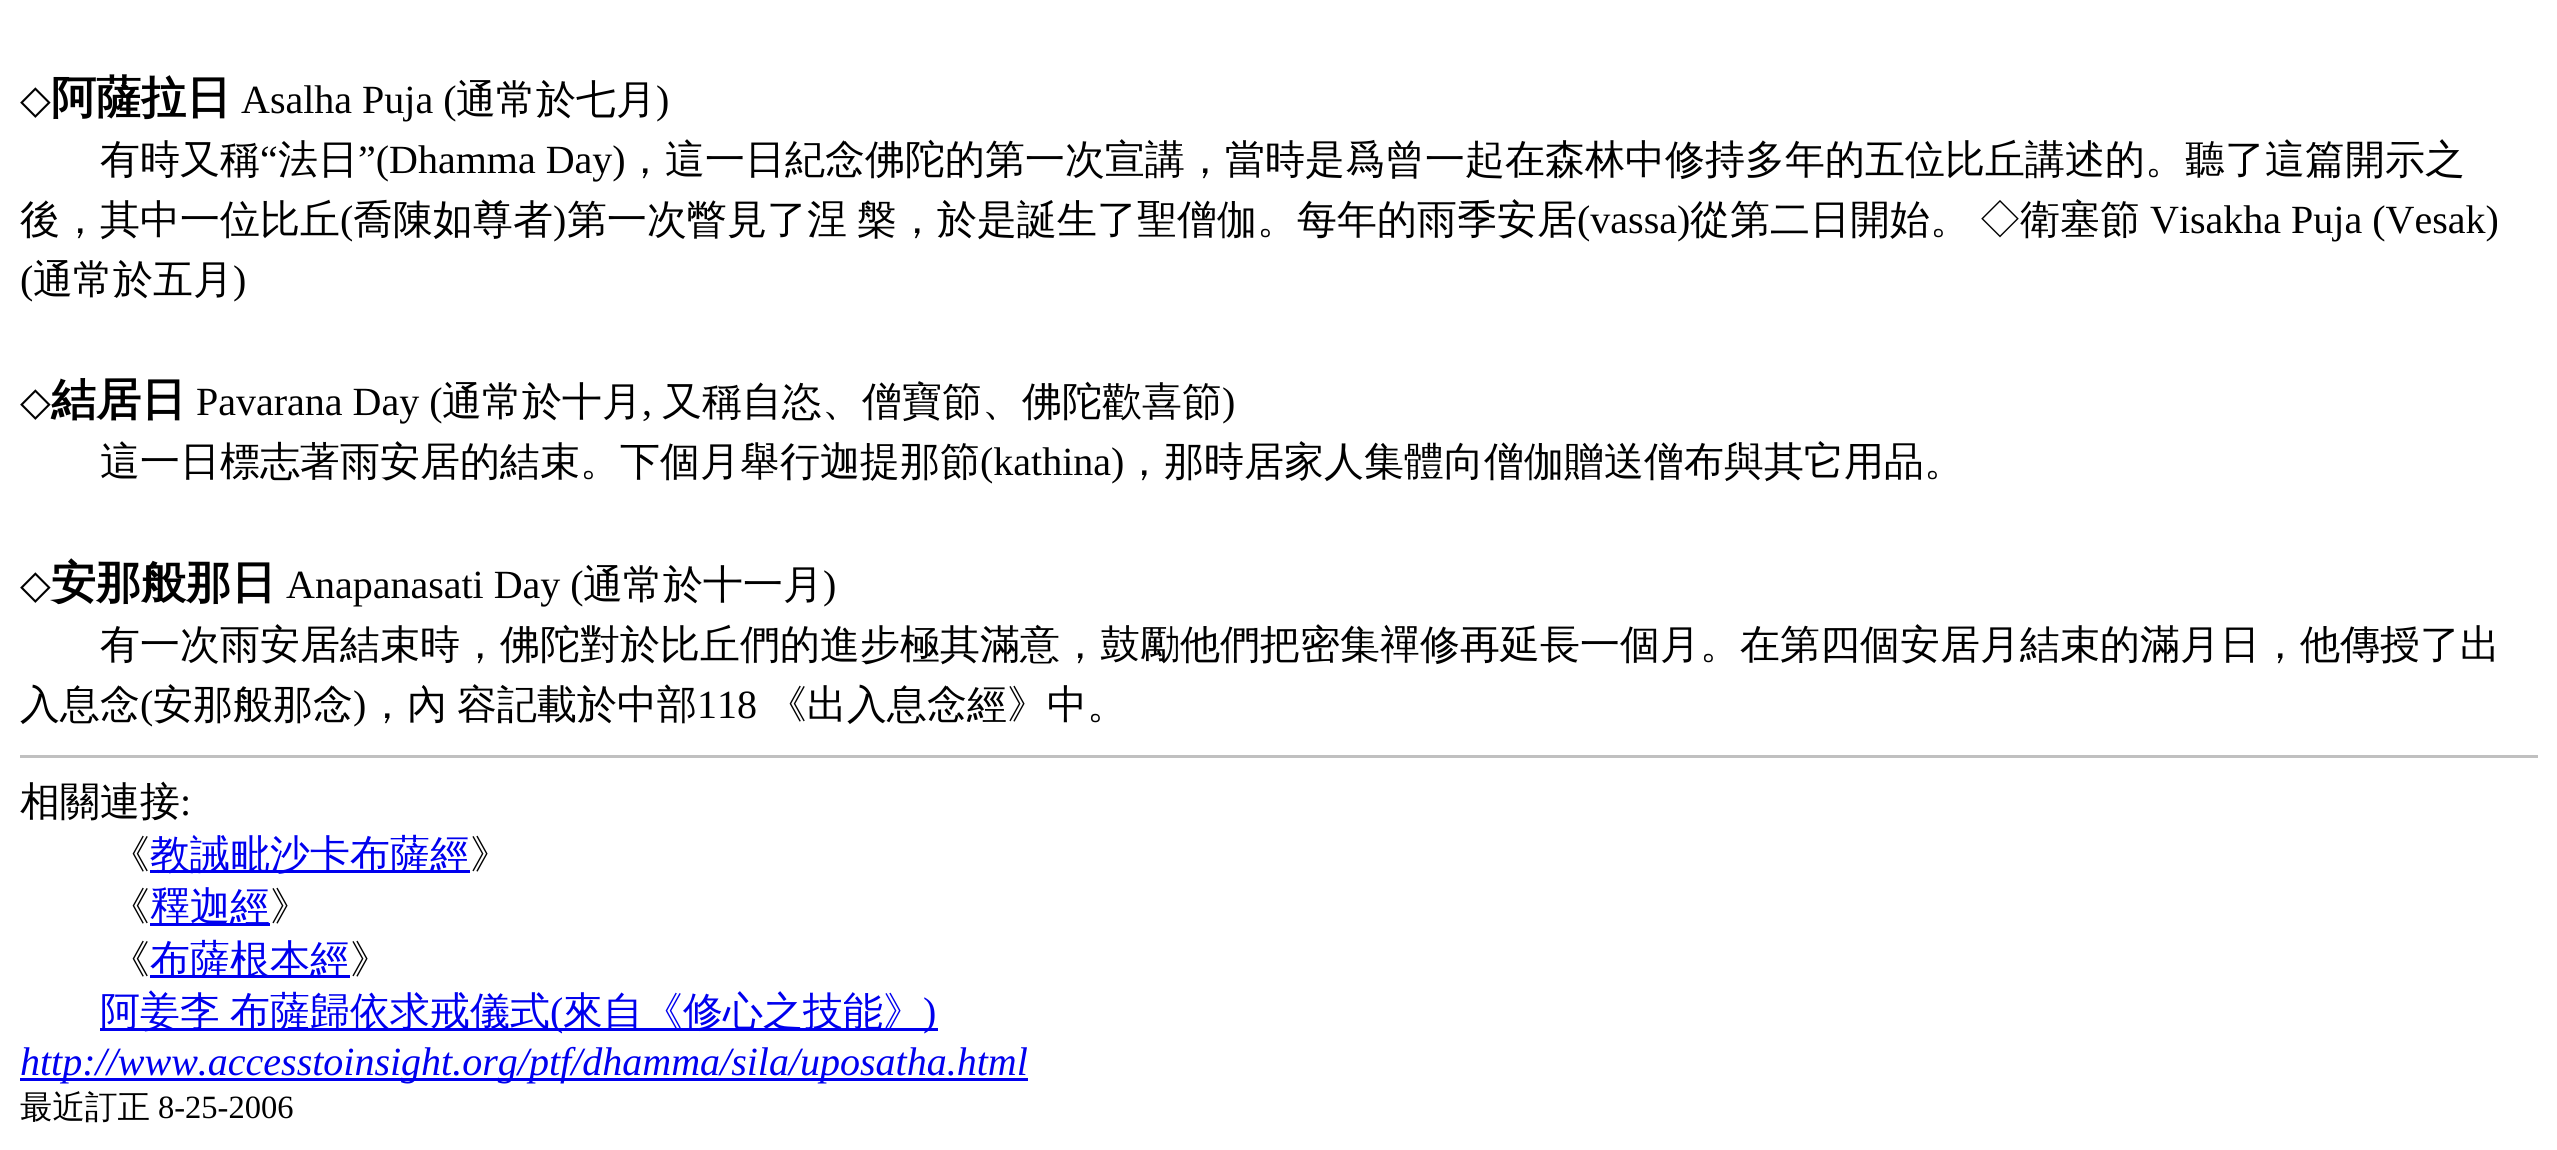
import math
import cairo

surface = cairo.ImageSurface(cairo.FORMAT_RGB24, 2557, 1150)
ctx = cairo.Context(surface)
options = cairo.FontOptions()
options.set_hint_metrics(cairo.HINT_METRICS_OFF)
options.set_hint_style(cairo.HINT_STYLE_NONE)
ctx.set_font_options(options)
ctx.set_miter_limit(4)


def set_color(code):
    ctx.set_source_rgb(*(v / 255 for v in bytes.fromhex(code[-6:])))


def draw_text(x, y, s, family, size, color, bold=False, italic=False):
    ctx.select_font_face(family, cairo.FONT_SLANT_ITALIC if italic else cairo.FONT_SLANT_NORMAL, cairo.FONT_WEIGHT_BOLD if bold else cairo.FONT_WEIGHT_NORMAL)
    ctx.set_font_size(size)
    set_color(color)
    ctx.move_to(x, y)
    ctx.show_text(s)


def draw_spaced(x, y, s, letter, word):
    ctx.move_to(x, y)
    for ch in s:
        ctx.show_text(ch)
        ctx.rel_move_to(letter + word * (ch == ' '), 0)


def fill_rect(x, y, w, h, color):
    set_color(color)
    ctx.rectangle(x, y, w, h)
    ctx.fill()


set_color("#ffffff")
ctx.paint()
draw_text(20, 113, "◇", "DejaVu Sans", 40, "#000000")
draw_text(51, 113, "阿薩拉日", "WenQuanYi Zen Hei", 45, "#000000", bold=True)
draw_text(241, 113, "Asalha Puja (", "Liberation Serif", 40, "#000000")
draw_text(456, 113, "通常於七月", "WenQuanYi Zen Hei Medium", 40, "#000000")
draw_text(656, 113, ")", "Liberation Serif", 40, "#000000")
draw_text(100, 173, "有時又稱", "WenQuanYi Zen Hei Medium", 40, "#000000")
draw_text(260, 173, "“", "Liberation Serif", 40, "#000000")
draw_text(278, 173, "法日", "WenQuanYi Zen Hei Medium", 40, "#000000")
draw_text(358, 173, "”(Dhamma Day)", "Liberation Serif", 40, "#000000")
draw_text(625, 173, "，這一日紀念佛陀的第一次宣講，當時是爲曾一起在森林中修持多年的五位比丘講述的。聽了這篇開示之", "WenQuanYi Zen Hei Medium", 40, "#000000")
draw_text(20, 233, "後，其中一位比丘", "WenQuanYi Zen Hei Medium", 40, "#000000")
draw_text(340, 233, "(", "Liberation Serif", 40, "#000000")
draw_text(353, 233, "喬陳如尊者", "WenQuanYi Zen Hei Medium", 40, "#000000")
draw_text(553, 233, ")", "Liberation Serif", 40, "#000000")
draw_text(567, 233, "第一次瞥見了涅", "WenQuanYi Zen Hei Medium", 40, "#000000")
draw_text(857, 233, "槃，於是誕生了聖僧伽。每年的雨季安居", "WenQuanYi Zen Hei Medium", 40, "#000000")
draw_text(1577, 233, "(vassa)", "Liberation Serif", 40, "#000000")
draw_text(1690, 233, "從第二日開始。", "WenQuanYi Zen Hei Medium", 40, "#000000")
draw_text(1980, 233, "◇衛塞節", "WenQuanYi Zen Hei Medium", 40, "#000000")
draw_text(2150, 233, "Visakha Puja (Vesak)", "Liberation Serif", 40, "#000000")
draw_text(20, 293, "(", "Liberation Serif", 40, "#000000")
draw_text(33, 293, "通常於五月", "WenQuanYi Zen Hei Medium", 40, "#000000")
draw_text(233, 293, ")", "Liberation Serif", 40, "#000000")
draw_text(20, 415, "◇", "DejaVu Sans", 40, "#000000")
draw_text(51, 415, "結居日", "WenQuanYi Zen Hei", 45, "#000000", bold=True)
draw_text(196, 415, "Pavarana Day (", "Liberation Serif", 40, "#000000")
draw_text(442, 415, "通常於十月", "WenQuanYi Zen Hei Medium", 40, "#000000")
draw_text(642, 415, ",", "Liberation Serif", 40, "#000000")
draw_text(662, 415, "又稱自恣、僧寶節、佛陀歡喜節", "WenQuanYi Zen Hei Medium", 40, "#000000")
draw_text(1222, 415, ")", "Liberation Serif", 40, "#000000")
draw_text(100, 475, "這一日標志著雨安居的結束。下個月舉行迦提那節", "WenQuanYi Zen Hei Medium", 40, "#000000")
draw_text(980, 475, "(kathina)", "Liberation Serif", 40, "#000000")
draw_text(1124, 475, "，那時居家人集體向僧伽贈送僧布與其它用品。", "WenQuanYi Zen Hei Medium", 40, "#000000")
draw_text(20, 598, "◇", "DejaVu Sans", 40, "#000000")
draw_text(51, 598, "安那般那日", "WenQuanYi Zen Hei", 45, "#000000", bold=True)
draw_text(286, 598, "Anapanasati Day (", "Liberation Serif", 40, "#000000")
draw_text(583, 598, "通常於十一月", "WenQuanYi Zen Hei Medium", 40, "#000000")
draw_text(823, 598, ")", "Liberation Serif", 40, "#000000")
draw_text(100, 658, "有一次雨安居結束時，佛陀對於比丘們的進步極其滿意，鼓勵他們把密集禪修再延長一個月。在第四個安居月結束的滿月日，他傳授了出", "WenQuanYi Zen Hei Medium", 40, "#000000")
draw_text(20, 718, "入息念", "WenQuanYi Zen Hei Medium", 40, "#000000")
draw_text(140, 718, "(", "Liberation Serif", 40, "#000000")
draw_text(153, 718, "安那般那念", "WenQuanYi Zen Hei Medium", 40, "#000000")
draw_text(353, 718, ")", "Liberation Serif", 40, "#000000")
draw_text(367, 718, "，內", "WenQuanYi Zen Hei Medium", 40, "#000000")
draw_text(457, 718, "容記載於中部", "WenQuanYi Zen Hei Medium", 40, "#000000")
draw_text(697, 718, "118", "Liberation Serif", 40, "#000000")
draw_text(767, 718, "《出入息念經》中。", "WenQuanYi Zen Hei Medium", 40, "#000000")
fill_rect(20, 755, 2518, 3, "#c0c0c0")
draw_text(20, 815, "相關連接", "WenQuanYi Zen Hei Medium", 40, "#000000")
draw_text(180, 815, ":", "Liberation Serif", 40, "#000000")
draw_text(110, 868, "《", "WenQuanYi Zen Hei Medium", 40, "#000000")
fill_rect(150, 870, 320, 3, "#0000ee")
draw_text(150, 868, "教誡毗沙卡布薩經", "WenQuanYi Zen Hei Medium", 40, "#0000ee")
draw_text(470, 868, "》", "WenQuanYi Zen Hei Medium", 40, "#000000")
draw_text(110, 920, "《", "WenQuanYi Zen Hei Medium", 40, "#000000")
fill_rect(150, 923, 120, 3, "#0000ee")
draw_text(150, 920, "釋迦經", "WenQuanYi Zen Hei Medium", 40, "#0000ee")
draw_text(270, 920, "》", "WenQuanYi Zen Hei Medium", 40, "#000000")
draw_text(110, 973, "《", "WenQuanYi Zen Hei Medium", 40, "#000000")
fill_rect(150, 975, 200, 3, "#0000ee")
draw_text(150, 973, "布薩根本經", "WenQuanYi Zen Hei Medium", 40, "#0000ee")
draw_text(350, 973, "》", "WenQuanYi Zen Hei Medium", 40, "#000000")
fill_rect(100, 1028, 838, 3, "#0000ee")
draw_spaced(100, 1025, "阿姜李 布薩歸依求戒儀式", 0, -2)
draw_text(550, 1025, "(", "Liberation Serif", 40, "#0000ee")
draw_text(563, 1025, "來自《修心之技能》", "WenQuanYi Zen Hei Medium", 40, "#0000ee")
draw_text(923, 1025, ")", "Liberation Serif", 40, "#0000ee")
fill_rect(20, 1078, 1008, 3, "#0000ee")
draw_text(20, 1075, "http://www.accesstoinsight.org/ptf/dhamma/sila/uposatha.html", "Liberation Serif", 40, "#0000ee", italic=True)
draw_text(20, 1118, "最近訂正", "WenQuanYi Zen Hei Medium", 32.5, "#000000")
draw_text(158, 1118, "8-25-2006", "Liberation Serif", 32.5, "#000000")
surface.write_to_png("output.png")
